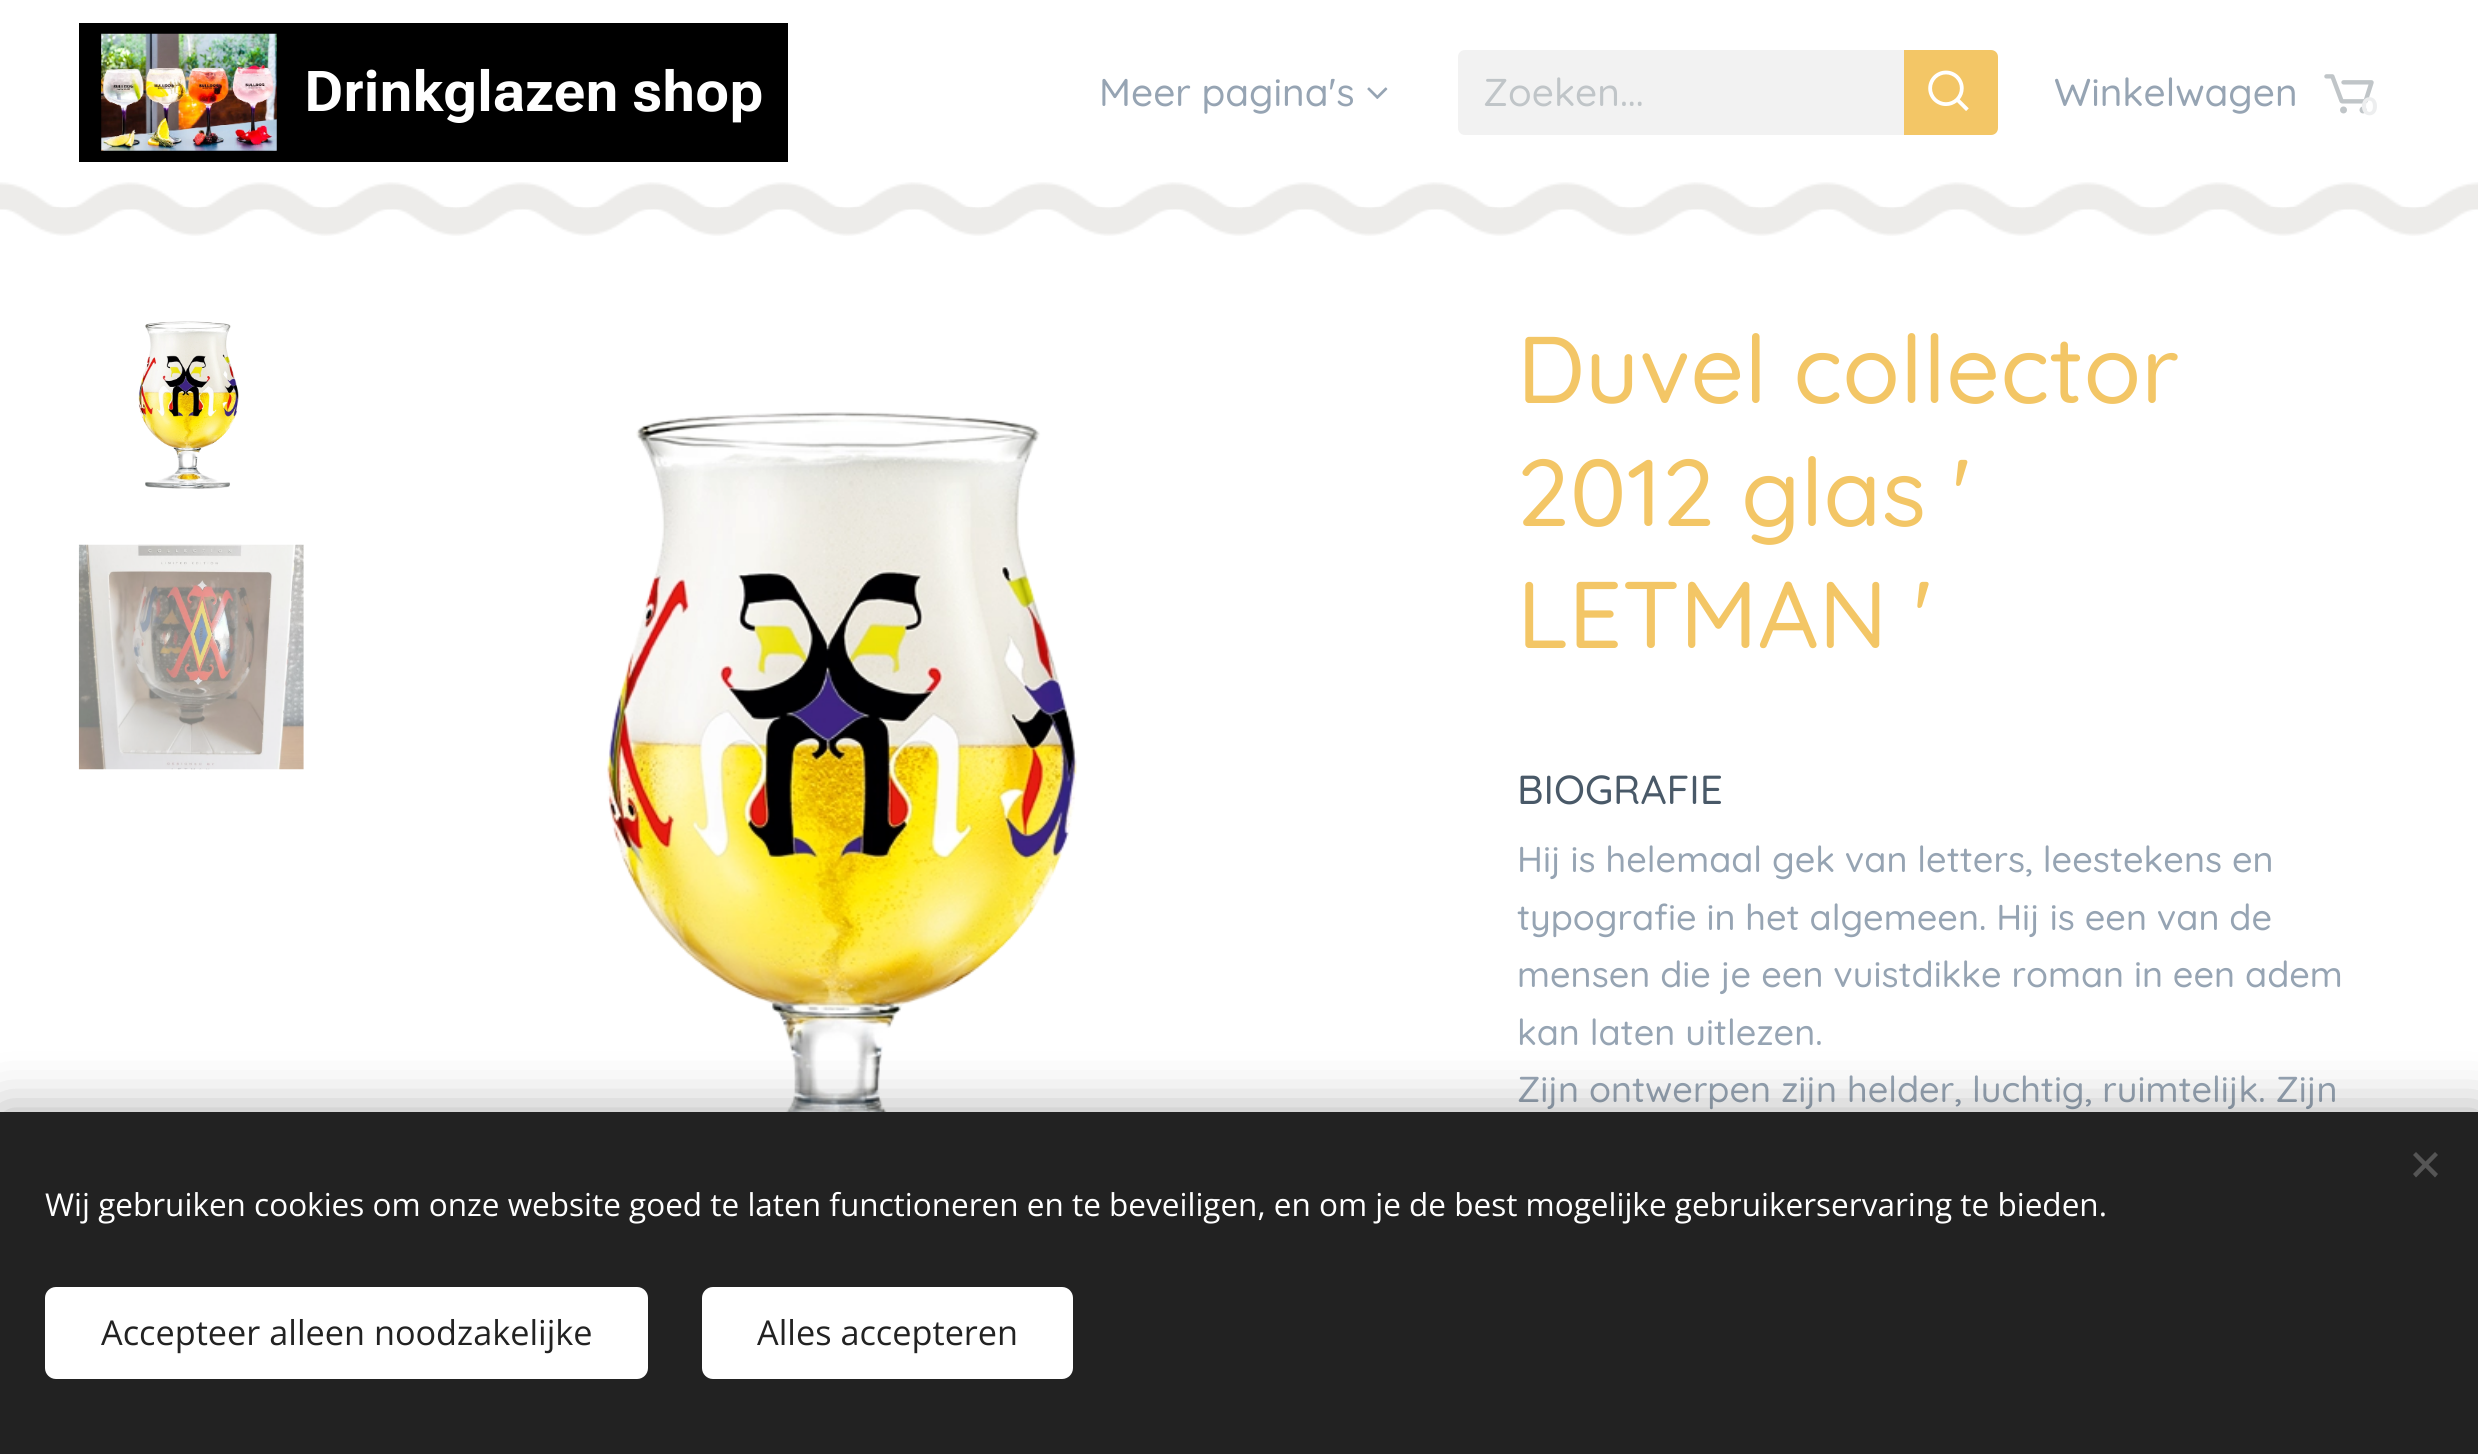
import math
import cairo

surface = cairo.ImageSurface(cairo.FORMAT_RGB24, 2478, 1454)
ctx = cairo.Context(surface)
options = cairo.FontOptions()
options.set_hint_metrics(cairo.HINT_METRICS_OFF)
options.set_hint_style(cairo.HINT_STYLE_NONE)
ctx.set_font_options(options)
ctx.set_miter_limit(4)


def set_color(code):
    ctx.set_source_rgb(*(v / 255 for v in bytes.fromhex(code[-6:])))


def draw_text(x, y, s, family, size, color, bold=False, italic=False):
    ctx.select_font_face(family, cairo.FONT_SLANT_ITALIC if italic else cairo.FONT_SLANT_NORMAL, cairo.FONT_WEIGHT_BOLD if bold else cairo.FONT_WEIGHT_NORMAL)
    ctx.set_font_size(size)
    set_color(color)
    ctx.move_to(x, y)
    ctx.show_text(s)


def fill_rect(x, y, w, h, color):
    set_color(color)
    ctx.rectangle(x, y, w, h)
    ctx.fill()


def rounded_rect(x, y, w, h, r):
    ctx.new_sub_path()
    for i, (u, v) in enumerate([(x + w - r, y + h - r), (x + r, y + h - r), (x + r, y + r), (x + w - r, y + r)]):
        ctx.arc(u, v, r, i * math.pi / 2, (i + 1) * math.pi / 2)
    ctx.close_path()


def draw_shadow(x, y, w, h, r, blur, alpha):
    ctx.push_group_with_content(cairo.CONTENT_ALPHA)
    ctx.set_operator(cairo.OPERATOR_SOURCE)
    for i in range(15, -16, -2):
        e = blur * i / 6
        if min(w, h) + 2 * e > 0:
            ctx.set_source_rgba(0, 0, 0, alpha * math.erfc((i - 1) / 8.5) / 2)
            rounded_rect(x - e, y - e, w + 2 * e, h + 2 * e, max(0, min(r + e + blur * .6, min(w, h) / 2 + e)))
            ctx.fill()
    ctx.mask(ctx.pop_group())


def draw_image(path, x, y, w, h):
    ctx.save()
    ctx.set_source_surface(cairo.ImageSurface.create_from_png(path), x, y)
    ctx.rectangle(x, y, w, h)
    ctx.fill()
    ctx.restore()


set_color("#ffffff")
ctx.paint()
fill_rect(79, 23, 709, 139, "#000000")
draw_image("assets/img1.png", 101, 33, 176, 118)
draw_text(304, 111, "Drinkglazen shop", "Roboto Flex", 56.25, "#ffffff", bold=True)
draw_text(1099, 106, "Meer pagina's", "Quicksand Medium", 38.75, "#96a4b3")
draw_image("assets/img2.png", 1367, 87, 21, 12)
set_color("#f2f2f2")
ctx.new_path()
ctx.move_to(1465, 50)
ctx.line_to(1904, 50)
ctx.line_to(1904, 135)
ctx.line_to(1465, 135)
ctx.curve_to(1461, 135, 1458, 132, 1458, 128)
ctx.line_to(1458, 57)
ctx.curve_to(1458, 53, 1461, 50, 1465, 50)
ctx.close_path()
ctx.fill()
draw_text(1483, 106, "Zoeken...", "Quicksand Medium", 38.75, "#c0c5c8")
set_color("#f3c666")
ctx.new_path()
ctx.move_to(1904, 50)
ctx.line_to(1991, 50)
ctx.curve_to(1995, 50, 1998, 53, 1998, 57)
ctx.line_to(1998, 128)
ctx.curve_to(1998, 132, 1995, 135, 1991, 135)
ctx.line_to(1904, 135)
ctx.close_path()
ctx.fill()
draw_image("assets/img3.png", 1928, 70, 41, 41)
draw_text(2054, 106, "Winkelwagen", "Quicksand Medium", 38.75, "#96a4b3")
draw_image("assets/img4.png", 2324, 74, 50, 40)
draw_text(2361, 115, "0", "Montserrat", 25, "#edeeef", bold=True)
draw_image("assets/img6.png", 0, 207, 2478, 29)
draw_image("assets/img5.png", 0, 182, 2478, 28)
draw_image("assets/img7.png", 138, 321, 101, 168)
draw_image("assets/img8.png", 78, 544, 226, 226)
draw_image("assets/img9.png", 607, 412, 470, 700)
draw_text(1517, 403, "Duvel collector", "Quicksand Medium", 94.5, "#f3c666")
draw_text(1517, 526, "2012 glas '", "Quicksand Medium", 94.5, "#f3c666")
draw_text(1517, 648, "LETMAN '", "Quicksand Medium", 94.5, "#f3c666")
draw_text(1517, 804, "BIOGRAFIE", "Quicksand Medium", 40.5, "#495968")
draw_text(1517, 872, "Hij is helemaal gek van letters, leestekens en", "Quicksand Medium", 36, "#96a4b3")
draw_text(1517, 930, "typografie in het algemeen. Hij is een van de", "Quicksand Medium", 36, "#96a4b3")
draw_text(1517, 987, "mensen die je een vuistdikke roman in een adem", "Quicksand Medium", 36, "#96a4b3")
draw_text(1517, 1045, "kan laten uitlezen.", "Quicksand Medium", 36, "#96a4b3")
draw_text(1517, 1102, "Zijn ontwerpen zijn helder, luchtig, ruimtelijk. Zijn", "Quicksand Medium", 36, "#96a4b3")
set_color("#000000")
draw_shadow(0, 1112, 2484, 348, 0, 28, 0.33)
fill_rect(0, 1112, 2478, 342, "#222222")
set_color("#555555")
ctx.new_path()
ctx.move_to(2413, 1174)
ctx.line_to(2435, 1152)
ctx.line_to(2438, 1155)
ctx.line_to(2416, 1177.5)
ctx.close_path()
ctx.fill()
ctx.new_path()
ctx.move_to(2416, 1152)
ctx.line_to(2438, 1174)
ctx.line_to(2435, 1177.5)
ctx.line_to(2413, 1155)
ctx.close_path()
ctx.fill()
draw_text(45, 1216, "Wij gebruiken cookies om onze website goed te laten functioneren en te beveiligen, en om je de best mogelijke gebruikerservaring te bieden.", "Open Sans", 31.5, "#ffffff")
rounded_rect(45, 1287, 603, 92, 11)
ctx.fill()
draw_text(101, 1345, "Accepteer alleen noodzakelijke", "Open Sans", 34.25, "#222222")
set_color("#ffffff")
rounded_rect(702, 1287, 371, 92, 11)
ctx.fill()
draw_text(757, 1345, "Alles accepteren", "Open Sans", 34.25, "#222222")
surface.write_to_png("output.png")
